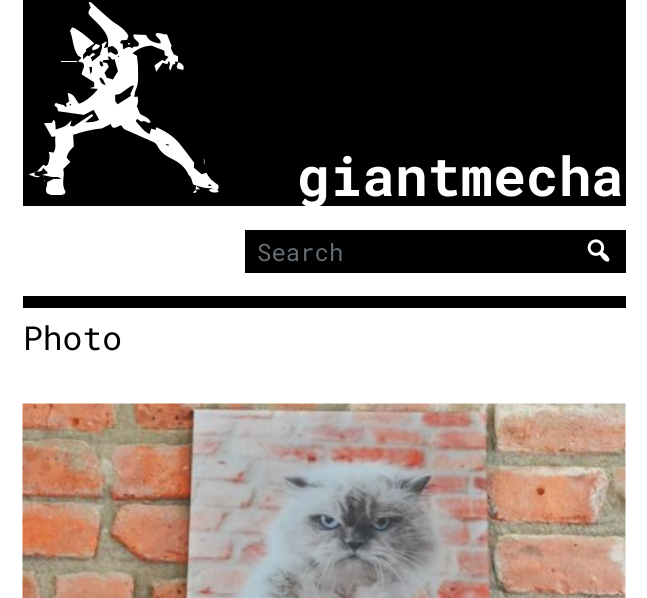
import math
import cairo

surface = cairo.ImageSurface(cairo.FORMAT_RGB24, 647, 598)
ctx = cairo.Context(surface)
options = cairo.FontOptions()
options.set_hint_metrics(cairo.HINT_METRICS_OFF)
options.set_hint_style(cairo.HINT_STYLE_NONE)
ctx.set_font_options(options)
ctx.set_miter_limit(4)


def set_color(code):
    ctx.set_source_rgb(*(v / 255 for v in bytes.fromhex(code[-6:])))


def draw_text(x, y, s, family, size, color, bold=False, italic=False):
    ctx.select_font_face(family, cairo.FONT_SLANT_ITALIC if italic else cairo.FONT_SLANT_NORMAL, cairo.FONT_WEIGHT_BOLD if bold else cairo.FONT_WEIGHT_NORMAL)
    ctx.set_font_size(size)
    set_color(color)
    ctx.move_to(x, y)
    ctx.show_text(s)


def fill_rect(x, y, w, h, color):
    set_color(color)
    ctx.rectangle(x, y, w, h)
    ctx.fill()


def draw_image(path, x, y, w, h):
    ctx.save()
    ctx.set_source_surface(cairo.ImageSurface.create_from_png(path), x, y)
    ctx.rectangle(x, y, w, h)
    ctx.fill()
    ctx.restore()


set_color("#ffffff")
ctx.paint()
fill_rect(23, 0, 603, 206, "#000000")
draw_image("assets/img1.png", 28, 2, 191, 193)
draw_text(297, 196, "giantmecha", "Roboto Mono", 54.5, "#ffffff", bold=True)
fill_rect(245, 230, 381, 43, "#000000")
draw_text(257, 261, "Search", "Roboto Mono", 24, "#636c72")
draw_image("assets/img2.png", 587, 239, 23, 23)
fill_rect(23, 296, 603, 12, "#000000")
draw_text(23, 350, "Photo", "Roboto Mono", 33, "#000000")
draw_image("assets/img3.png", 22, 403, 604, 195)
surface.write_to_png("output.png")
